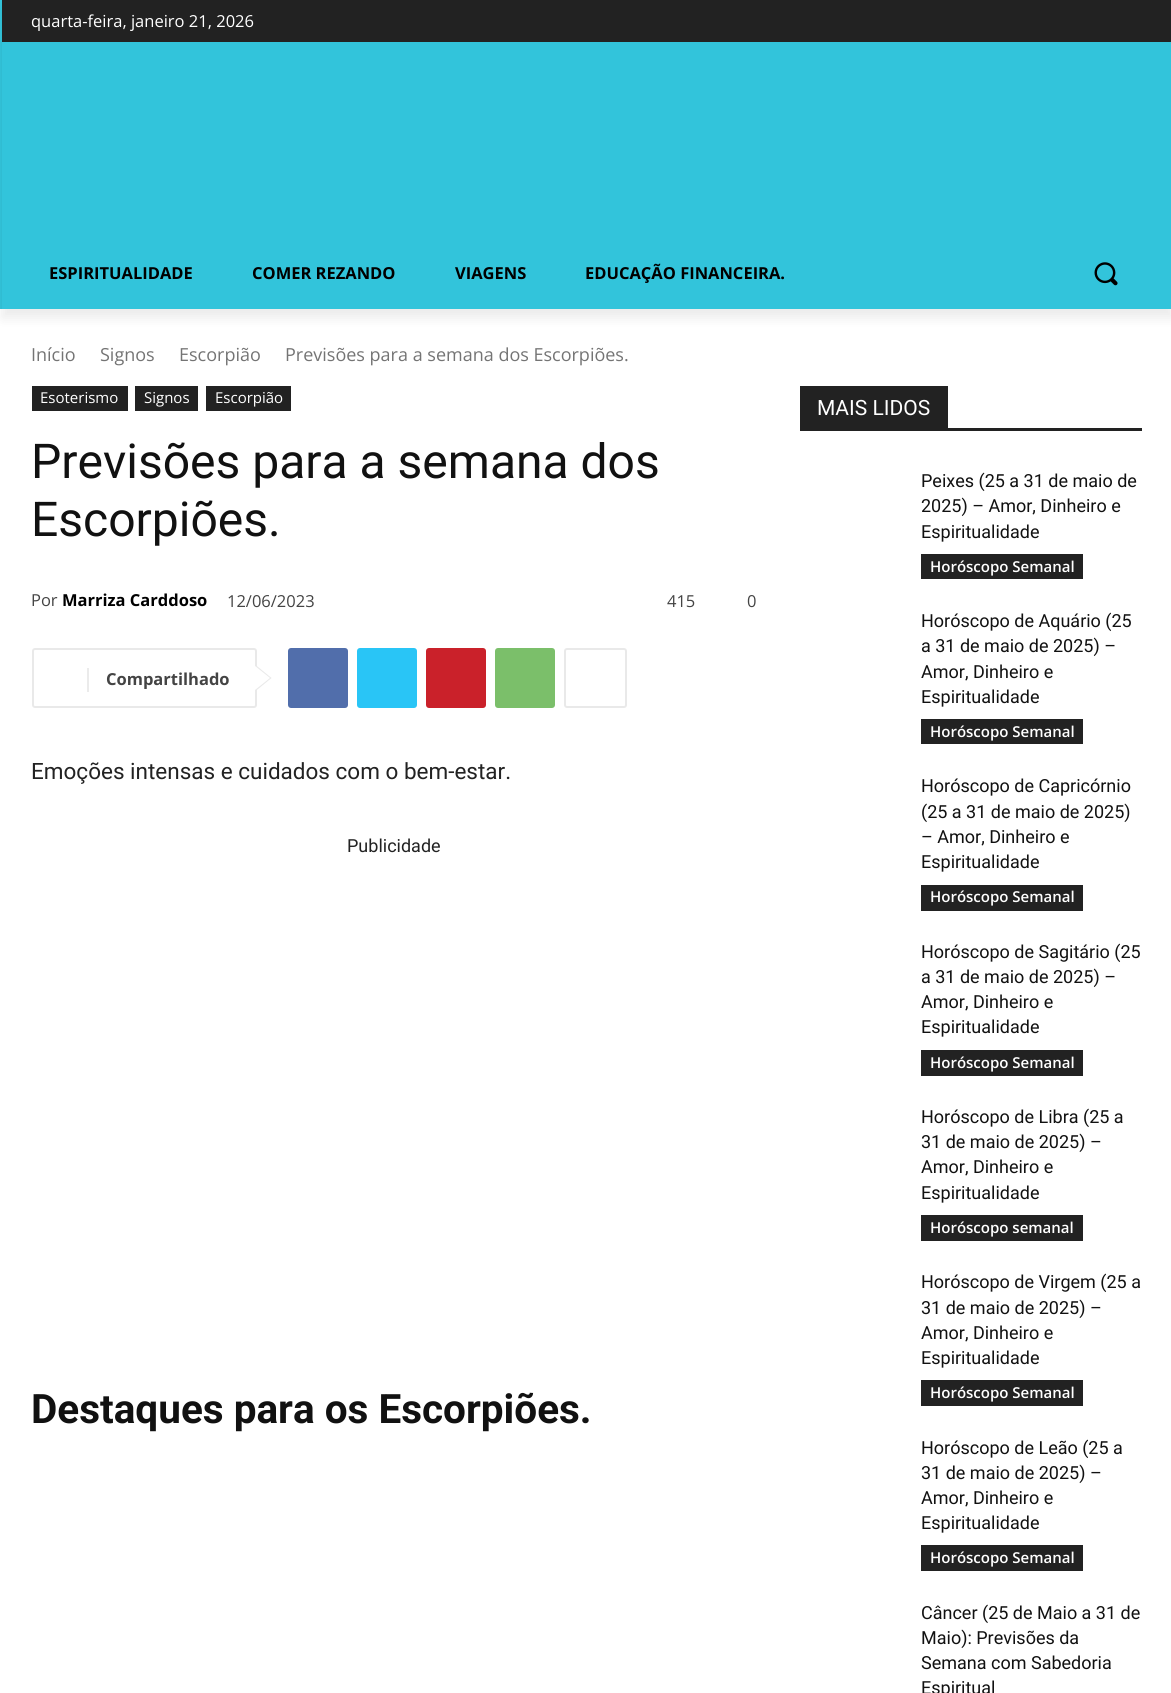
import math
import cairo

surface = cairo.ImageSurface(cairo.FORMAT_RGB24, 1171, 1693)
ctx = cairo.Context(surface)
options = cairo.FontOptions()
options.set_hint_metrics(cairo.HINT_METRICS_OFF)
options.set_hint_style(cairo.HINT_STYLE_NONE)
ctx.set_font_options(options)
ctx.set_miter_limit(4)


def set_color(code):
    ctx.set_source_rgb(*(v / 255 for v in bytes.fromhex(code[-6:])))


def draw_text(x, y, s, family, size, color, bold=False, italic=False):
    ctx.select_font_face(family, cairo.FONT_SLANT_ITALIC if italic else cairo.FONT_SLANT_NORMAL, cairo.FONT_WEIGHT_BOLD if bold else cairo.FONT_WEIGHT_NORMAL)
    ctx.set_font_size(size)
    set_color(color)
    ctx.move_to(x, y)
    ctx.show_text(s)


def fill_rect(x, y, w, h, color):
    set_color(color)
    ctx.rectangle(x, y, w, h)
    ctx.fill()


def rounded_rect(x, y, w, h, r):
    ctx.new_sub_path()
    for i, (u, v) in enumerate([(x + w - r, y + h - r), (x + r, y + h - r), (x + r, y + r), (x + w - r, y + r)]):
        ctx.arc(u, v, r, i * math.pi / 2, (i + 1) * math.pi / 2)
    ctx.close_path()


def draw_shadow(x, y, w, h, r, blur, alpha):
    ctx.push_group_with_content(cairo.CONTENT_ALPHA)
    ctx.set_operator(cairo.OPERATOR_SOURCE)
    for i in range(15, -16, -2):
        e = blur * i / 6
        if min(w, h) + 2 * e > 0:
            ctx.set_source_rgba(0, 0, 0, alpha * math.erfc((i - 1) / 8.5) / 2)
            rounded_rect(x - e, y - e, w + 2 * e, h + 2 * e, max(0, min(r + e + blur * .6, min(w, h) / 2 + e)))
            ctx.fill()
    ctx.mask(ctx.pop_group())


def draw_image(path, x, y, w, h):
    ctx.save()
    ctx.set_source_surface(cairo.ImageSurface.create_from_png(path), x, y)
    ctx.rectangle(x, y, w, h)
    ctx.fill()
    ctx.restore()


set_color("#ffffff")
ctx.paint()
fill_rect(0, 0, 1171, 309, "#32c4db")
fill_rect(2, 0, 1169, 42, "#222222")
ctx.save()
ctx.set_fill_rule(cairo.FILL_RULE_EVEN_ODD)
ctx.new_path()
ctx.move_to(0, 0)
ctx.line_to(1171, 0)
ctx.line_to(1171, 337)
ctx.line_to(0, 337)
ctx.close_path()
ctx.move_to(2, 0)
ctx.line_to(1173, 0)
ctx.line_to(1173, 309)
ctx.line_to(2, 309)
ctx.close_path()
ctx.clip()
set_color("#000000")
draw_shadow(2, 9, 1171, 309, 0, 6, 0.08)
ctx.restore()
draw_text(31, 27, "quarta-feira, janeiro 21, 2026", "Open Sans", 16.5, "#ffffff")
draw_text(49, 279, "ESPIRITUALIDADE", "Open Sans", 16.5, "#000000", bold=True)
draw_text(252, 279, "COMER REZANDO", "Open Sans", 16.5, "#000000", bold=True)
draw_text(455, 279, "VIAGENS", "Open Sans", 16.5, "#000000", bold=True)
draw_text(585, 279, "EDUCAÇÃO FINANCEIRA.", "Open Sans", 16.5, "#000000", bold=True)
draw_image("assets/img1.png", 1094, 262, 24, 24)
draw_text(31, 361, "Início", "Open Sans", 18, "#747474")
draw_text(100, 361, "Signos", "Open Sans", 18, "#747474")
draw_text(179, 361, "Escorpião", "Open Sans", 18, "#747474")
draw_text(285, 361, "Previsões para a semana dos Escorpiões.", "Open Sans", 18, "#747474")
fill_rect(32, 386, 96, 25, "#222222")
draw_text(40, 403, "Esoterismo", "Open Sans", 15, "#ffffff")
fill_rect(135, 386, 63, 25, "#222222")
draw_text(144, 403, "Signos", "Open Sans", 15, "#ffffff")
fill_rect(206, 386, 85, 25, "#222222")
draw_text(215, 403, "Escorpião", "Open Sans", 15, "#ffffff")
draw_text(31, 478, "Previsões para a semana dos", "Roboto", 48, "#111111")
draw_text(31, 536, "Escorpiões.", "Roboto", 48, "#111111")
draw_text(31, 606, "Por", "Open Sans", 16.5, "#444444")
draw_text(62, 606, "Marriza Carddoso", "Open Sans", 16.5, "#000000", bold=True)
draw_text(227, 607, "12/06/2023", "Open Sans", 16.5, "#444444")
draw_text(667, 607, "415", "Open Sans", 16.5, "#444444")
draw_text(747, 607, "0", "Open Sans", 16.5, "#444444")
rounded_rect(33, 649, 223, 58, 2)
set_color("#e9e9e9")
ctx.stroke()
ctx.new_path()
ctx.move_to(255, 691.5)
ctx.line_to(255, 664.5)
ctx.line_to(271.5, 678)
ctx.close_path()
ctx.fill()
fill_rect(87, 668, 2, 24, "#ebebeb")
draw_text(106, 685, "Compartilhado", "Open Sans", 16.5, "#444444", bold=True)
set_color("#ffffff")
ctx.new_path()
ctx.move_to(255, 690)
ctx.line_to(255, 666)
ctx.line_to(270, 678)
ctx.close_path()
ctx.fill()
set_color("#516eab")
rounded_rect(288, 648, 60, 60, 3)
ctx.fill()
set_color("#29c5f6")
rounded_rect(357, 648, 60, 60, 3)
ctx.fill()
set_color("#ca212a")
rounded_rect(426, 648, 60, 60, 3)
ctx.fill()
set_color("#7bbf6a")
rounded_rect(495, 648, 60, 60, 3)
ctx.fill()
rounded_rect(565, 649, 61, 58, 2)
set_color("#e9e9e9")
ctx.stroke()
draw_text(31, 779, "Emoções intensas e cuidados com o bem-estar.", "Roboto", 22.5, "#222222")
draw_text(347, 852, "Publicidade", "Roboto", 18, "#222222")
draw_text(31, 1423, "Destaques para os Escorpiões.", "Roboto", 40.5, "#111111", bold=True)
fill_rect(800, 428, 342, 3, "#222222")
fill_rect(800, 386, 148, 42, "#222222")
draw_text(817, 415, "MAIS LIDOS", "Roboto", 21, "#ffffff")
draw_text(921, 487, "Peixes (25 a 31 de maio de", "Roboto", 18, "#111111")
draw_text(921, 512, "2025) – Amor, Dinheiro e", "Roboto", 18, "#111111")
draw_text(921, 538, "Espiritualidade", "Roboto", 18, "#111111")
fill_rect(921, 554, 162, 25, "#222222")
draw_text(930, 572, "Horóscopo Semanal", "Open Sans SemiBold", 15, "#ffffff")
draw_text(921, 627, "Horóscopo de Aquário (25", "Roboto", 18, "#111111")
draw_text(921, 652, "a 31 de maio de 2025) –", "Roboto", 18, "#111111")
draw_text(921, 678, "Amor, Dinheiro e", "Roboto", 18, "#111111")
draw_text(921, 703, "Espiritualidade", "Roboto", 18, "#111111")
fill_rect(921, 719, 162, 25, "#222222")
draw_text(930, 737, "Horóscopo Semanal", "Open Sans SemiBold", 15, "#ffffff")
draw_text(921, 792, "Horóscopo de Capricórnio", "Roboto", 18, "#111111")
draw_text(921, 818, "(25 a 31 de maio de 2025)", "Roboto", 18, "#111111")
draw_text(921, 843, "– Amor, Dinheiro e", "Roboto", 18, "#111111")
draw_text(921, 868, "Espiritualidade", "Roboto", 18, "#111111")
fill_rect(921, 885, 162, 26, "#222222")
draw_text(930, 902, "Horóscopo Semanal", "Open Sans SemiBold", 15, "#ffffff")
draw_text(921, 958, "Horóscopo de Sagitário (25", "Roboto", 18, "#111111")
draw_text(921, 983, "a 31 de maio de 2025) –", "Roboto", 18, "#111111")
draw_text(921, 1008, "Amor, Dinheiro e", "Roboto", 18, "#111111")
draw_text(921, 1033, "Espiritualidade", "Roboto", 18, "#111111")
fill_rect(921, 1050, 162, 26, "#222222")
draw_text(930, 1068, "Horóscopo Semanal", "Open Sans SemiBold", 15, "#ffffff")
draw_text(921, 1123, "Horóscopo de Libra (25 a", "Roboto", 18, "#111111")
draw_text(921, 1148, "31 de maio de 2025) –", "Roboto", 18, "#111111")
draw_text(921, 1173, "Amor, Dinheiro e", "Roboto", 18, "#111111")
draw_text(921, 1199, "Espiritualidade", "Roboto", 18, "#111111")
fill_rect(921, 1215, 162, 26, "#222222")
draw_text(930, 1233, "Horóscopo semanal", "Open Sans SemiBold", 15, "#ffffff")
draw_text(921, 1288, "Horóscopo de Virgem (25 a", "Roboto", 18, "#111111")
draw_text(921, 1314, "31 de maio de 2025) –", "Roboto", 18, "#111111")
draw_text(921, 1339, "Amor, Dinheiro e", "Roboto", 18, "#111111")
draw_text(921, 1364, "Espiritualidade", "Roboto", 18, "#111111")
fill_rect(921, 1380, 162, 26, "#222222")
draw_text(930, 1398, "Horóscopo Semanal", "Open Sans SemiBold", 15, "#ffffff")
draw_text(921, 1454, "Horóscopo de Leão (25 a", "Roboto", 18, "#111111")
draw_text(921, 1479, "31 de maio de 2025) –", "Roboto", 18, "#111111")
draw_text(921, 1504, "Amor, Dinheiro e", "Roboto", 18, "#111111")
draw_text(921, 1529, "Espiritualidade", "Roboto", 18, "#111111")
fill_rect(921, 1545, 162, 26, "#222222")
draw_text(930, 1563, "Horóscopo Semanal", "Open Sans SemiBold", 15, "#ffffff")
draw_text(921, 1619, "Câncer (25 de Maio a 31 de", "Roboto", 18, "#111111")
draw_text(921, 1644, "Maio): Previsões da", "Roboto", 18, "#111111")
draw_text(921, 1669, "Semana com Sabedoria", "Roboto", 18, "#111111")
draw_text(921, 1694, "Espiritual", "Roboto", 18, "#111111")
surface.write_to_png("output.png")
